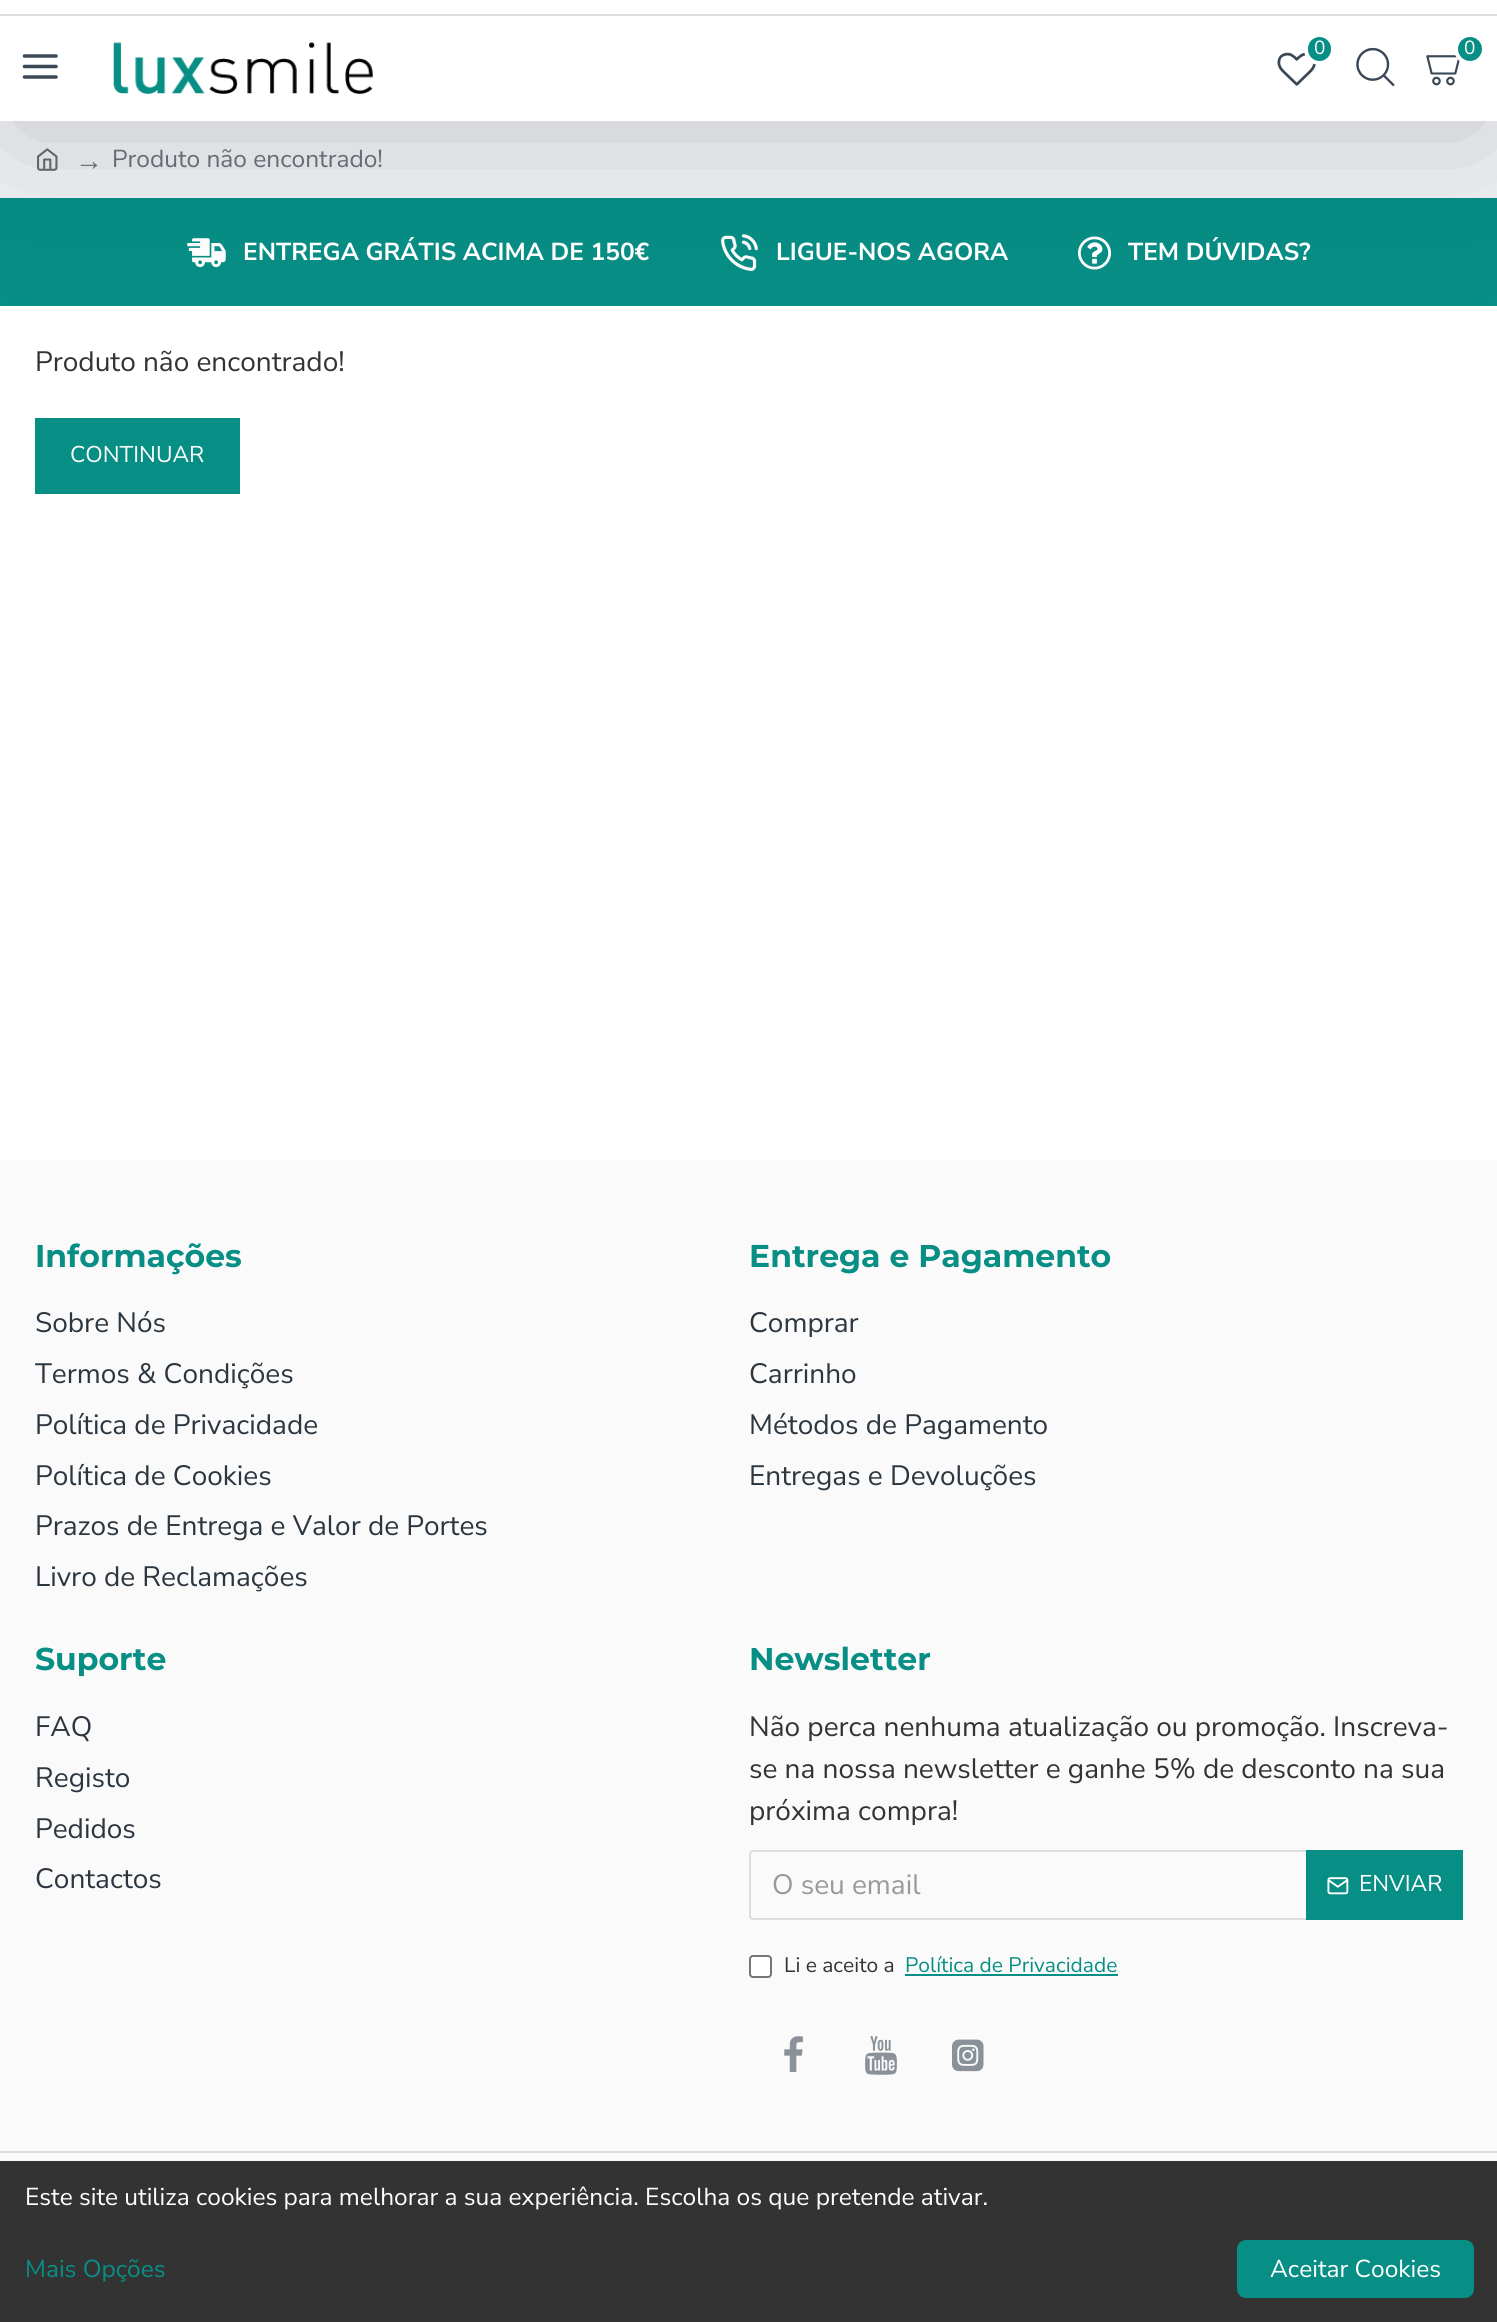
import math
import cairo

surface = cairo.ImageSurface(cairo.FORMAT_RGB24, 1497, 2322)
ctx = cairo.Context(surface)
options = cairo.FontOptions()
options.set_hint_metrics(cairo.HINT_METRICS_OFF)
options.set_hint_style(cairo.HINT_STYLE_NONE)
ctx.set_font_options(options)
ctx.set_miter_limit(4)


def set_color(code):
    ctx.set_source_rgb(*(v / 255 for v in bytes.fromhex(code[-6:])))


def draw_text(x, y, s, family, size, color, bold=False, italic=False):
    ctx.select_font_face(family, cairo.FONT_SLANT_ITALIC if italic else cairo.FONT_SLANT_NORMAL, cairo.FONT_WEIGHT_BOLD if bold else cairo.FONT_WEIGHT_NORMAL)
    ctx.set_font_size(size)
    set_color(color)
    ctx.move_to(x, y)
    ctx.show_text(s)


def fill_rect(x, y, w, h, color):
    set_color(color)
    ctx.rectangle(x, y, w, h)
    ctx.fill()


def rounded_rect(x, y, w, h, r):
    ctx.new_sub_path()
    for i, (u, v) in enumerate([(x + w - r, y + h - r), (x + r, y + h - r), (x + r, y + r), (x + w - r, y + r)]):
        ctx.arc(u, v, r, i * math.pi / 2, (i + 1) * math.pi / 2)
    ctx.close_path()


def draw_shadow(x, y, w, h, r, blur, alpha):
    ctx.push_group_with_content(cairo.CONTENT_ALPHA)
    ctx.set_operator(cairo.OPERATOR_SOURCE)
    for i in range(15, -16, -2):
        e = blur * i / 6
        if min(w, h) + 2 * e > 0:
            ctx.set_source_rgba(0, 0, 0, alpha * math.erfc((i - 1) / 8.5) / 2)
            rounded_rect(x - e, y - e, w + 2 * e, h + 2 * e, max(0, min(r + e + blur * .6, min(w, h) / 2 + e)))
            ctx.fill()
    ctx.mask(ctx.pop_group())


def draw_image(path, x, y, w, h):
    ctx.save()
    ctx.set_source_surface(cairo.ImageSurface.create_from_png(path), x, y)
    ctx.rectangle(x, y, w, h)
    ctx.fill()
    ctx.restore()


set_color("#ffffff")
ctx.paint()
fill_rect(0, 121, 1497, 77, "#f0f2f5")
draw_image("assets/img6.png", 37, 148, 21, 23)
fill_rect(0, 198, 1497, 108, "#078e85")
draw_image("assets/img7.png", 187, 238, 39, 30)
draw_image("assets/img8.png", 721, 234, 37, 37)
draw_image("assets/img9.png", 1078, 236, 33, 34)
set_color("#000000")
draw_shadow(18, 60, 1463, 70, 0, 79, 0.2)
fill_rect(0, 0, 1497, 14, "#ffffff")
fill_rect(0, 14, 1497, 2, "#dddddd")
fill_rect(0, 16, 1497, 105, "#ffffff")
draw_image("assets/img1.png", 113, 42, 260, 52)
draw_image("assets/img2.png", 22, 54, 36, 25)
draw_image("assets/img3.png", 1277, 52, 39, 34)
set_color("#078e85")
rounded_rect(1306, 35, 27, 28, 13.5)
ctx.fill_preserve()
set_color("#ffffff")
ctx.set_line_width(4)
ctx.stroke()
draw_text(1314, 54, "0", "Nunito Sans", 19, "#ffffff")
draw_image("assets/img4.png", 1356, 47, 39, 40)
draw_image("assets/img5.png", 1426, 55, 34, 31)
set_color("#078e85")
ctx.arc(1470, 49, 14, 0, 2 * math.pi)
ctx.fill_preserve()
set_color("#ffffff")
ctx.stroke()
draw_text(1464, 54, "0", "Nunito Sans", 19, "#ffffff")
draw_text(75, 170, "→", "Liberation Serif", 28, "#696973")
draw_text(112, 167, "Produto não encontrado!", "Nunito Sans", 24.5, "#696973")
draw_text(243, 260, "ENTREGA GRÁTIS ACIMA DE 150€", "Nunito Sans", 24.5, "#ffffff", bold=True)
draw_text(776, 260, "LIGUE-NOS AGORA", "Nunito Sans", 24.5, "#ffffff", bold=True)
draw_text(1128, 260, "TEM DÚVIDAS?", "Nunito Sans", 24.5, "#ffffff", bold=True)
draw_text(35, 371, "Produto não encontrado!", "Nunito Sans", 28, "#333333")
fill_rect(35, 418, 205, 76, "#078e85")
draw_text(70, 462, "CONTINUAR", "Nunito Sans", 22.75, "#ffffff")
fill_rect(0, 1160, 1497, 1001, "#fafafa")
draw_text(35, 1267, "Informações", "Montserrat", 31.5, "#078e85", bold=True)
draw_text(35, 1332, "Sobre Nós", "Nunito Sans", 28, "#2c3640")
draw_text(35, 1383, "Termos & Condições", "Nunito Sans", 28, "#2c3640")
draw_text(35, 1434, "Política de Privacidade", "Nunito Sans", 28, "#2c3640")
draw_text(35, 1485, "Política de Cookies", "Nunito Sans", 28, "#2c3640")
draw_text(35, 1535, "Prazos de Entrega e Valor de Portes", "Nunito Sans", 28, "#2c3640")
draw_text(35, 1586, "Livro de Reclamações", "Nunito Sans", 28, "#2c3640")
draw_text(749, 1267, "Entrega e Pagamento", "Montserrat", 31.5, "#078e85", bold=True)
draw_text(749, 1332, "Comprar", "Nunito Sans", 28, "#2c3640")
draw_text(749, 1383, "Carrinho", "Nunito Sans", 28, "#2c3640")
draw_text(749, 1434, "Métodos de Pagamento", "Nunito Sans", 28, "#2c3640")
draw_text(749, 1485, "Entregas e Devoluções", "Nunito Sans", 28, "#2c3640")
draw_text(35, 1670, "Suporte", "Montserrat", 31.5, "#078e85", bold=True)
draw_text(35, 1736, "FAQ", "Nunito Sans", 28, "#2c3640")
draw_text(35, 1787, "Registo", "Nunito Sans", 28, "#2c3640")
draw_text(35, 1838, "Pedidos", "Nunito Sans", 28, "#2c3640")
draw_text(35, 1888, "Contactos", "Nunito Sans", 28, "#2c3640")
draw_text(749, 1670, "Newsletter", "Montserrat", 31.5, "#078e85", bold=True)
draw_text(749, 1736, "Não perca nenhuma atualização ou promoção. Inscreva-", "Nunito Sans", 28, "#333333")
draw_text(749, 1778, "se na nossa newsletter e ganhe 5% de desconto na sua", "Nunito Sans", 28, "#333333")
draw_text(749, 1820, "próxima compra!", "Nunito Sans", 28, "#333333")
rounded_rect(750, 1851, 712, 68, 3)
set_color("#dddddd")
ctx.set_line_width(2)
ctx.stroke()
draw_text(772, 1894, "O seu email", "Nunito Sans", 28, "#999999")
fill_rect(1306, 1850, 157, 70, "#078e85")
draw_image("assets/img10.png", 1327, 1877, 22, 18)
draw_text(1359, 1891, "ENVIAR", "Nunito Sans", 22.75, "#ffffff")
rounded_rect(750, 1956, 21, 21, 3)
ctx.fill_preserve()
set_color("#767676")
ctx.stroke()
draw_text(784, 1972, "Li e aceito a", "Nunito Sans", 21, "#333333")
draw_text(905, 1972, "Política de Privacidade", "Nunito Sans", 21, "#078e85")
fill_rect(905, 1974, 213, 2, "#078e85")
draw_image("assets/img11.png", 784, 2036, 19, 36)
draw_image("assets/img12.png", 865, 2036, 32, 39)
draw_image("assets/img13.png", 952, 2039, 32, 33)
fill_rect(0, 2151, 1497, 2, "#dddddd")
fill_rect(0, 2161, 1497, 161, "#333333")
draw_text(25, 2205, "Este site utiliza cookies para melhorar a sua experiência. Escolha os que pretende ativar.", "Nunito Sans", 24.5, "#ffffff")
draw_text(25, 2277, "Mais Opções", "Nunito Sans", 24.5, "#078e85")
rounded_rect(1237, 2240, 237, 58, 9)
ctx.fill()
draw_text(1270, 2277, "Aceitar Cookies", "Nunito Sans", 24.5, "#ffffff")
surface.write_to_png("output.png")
